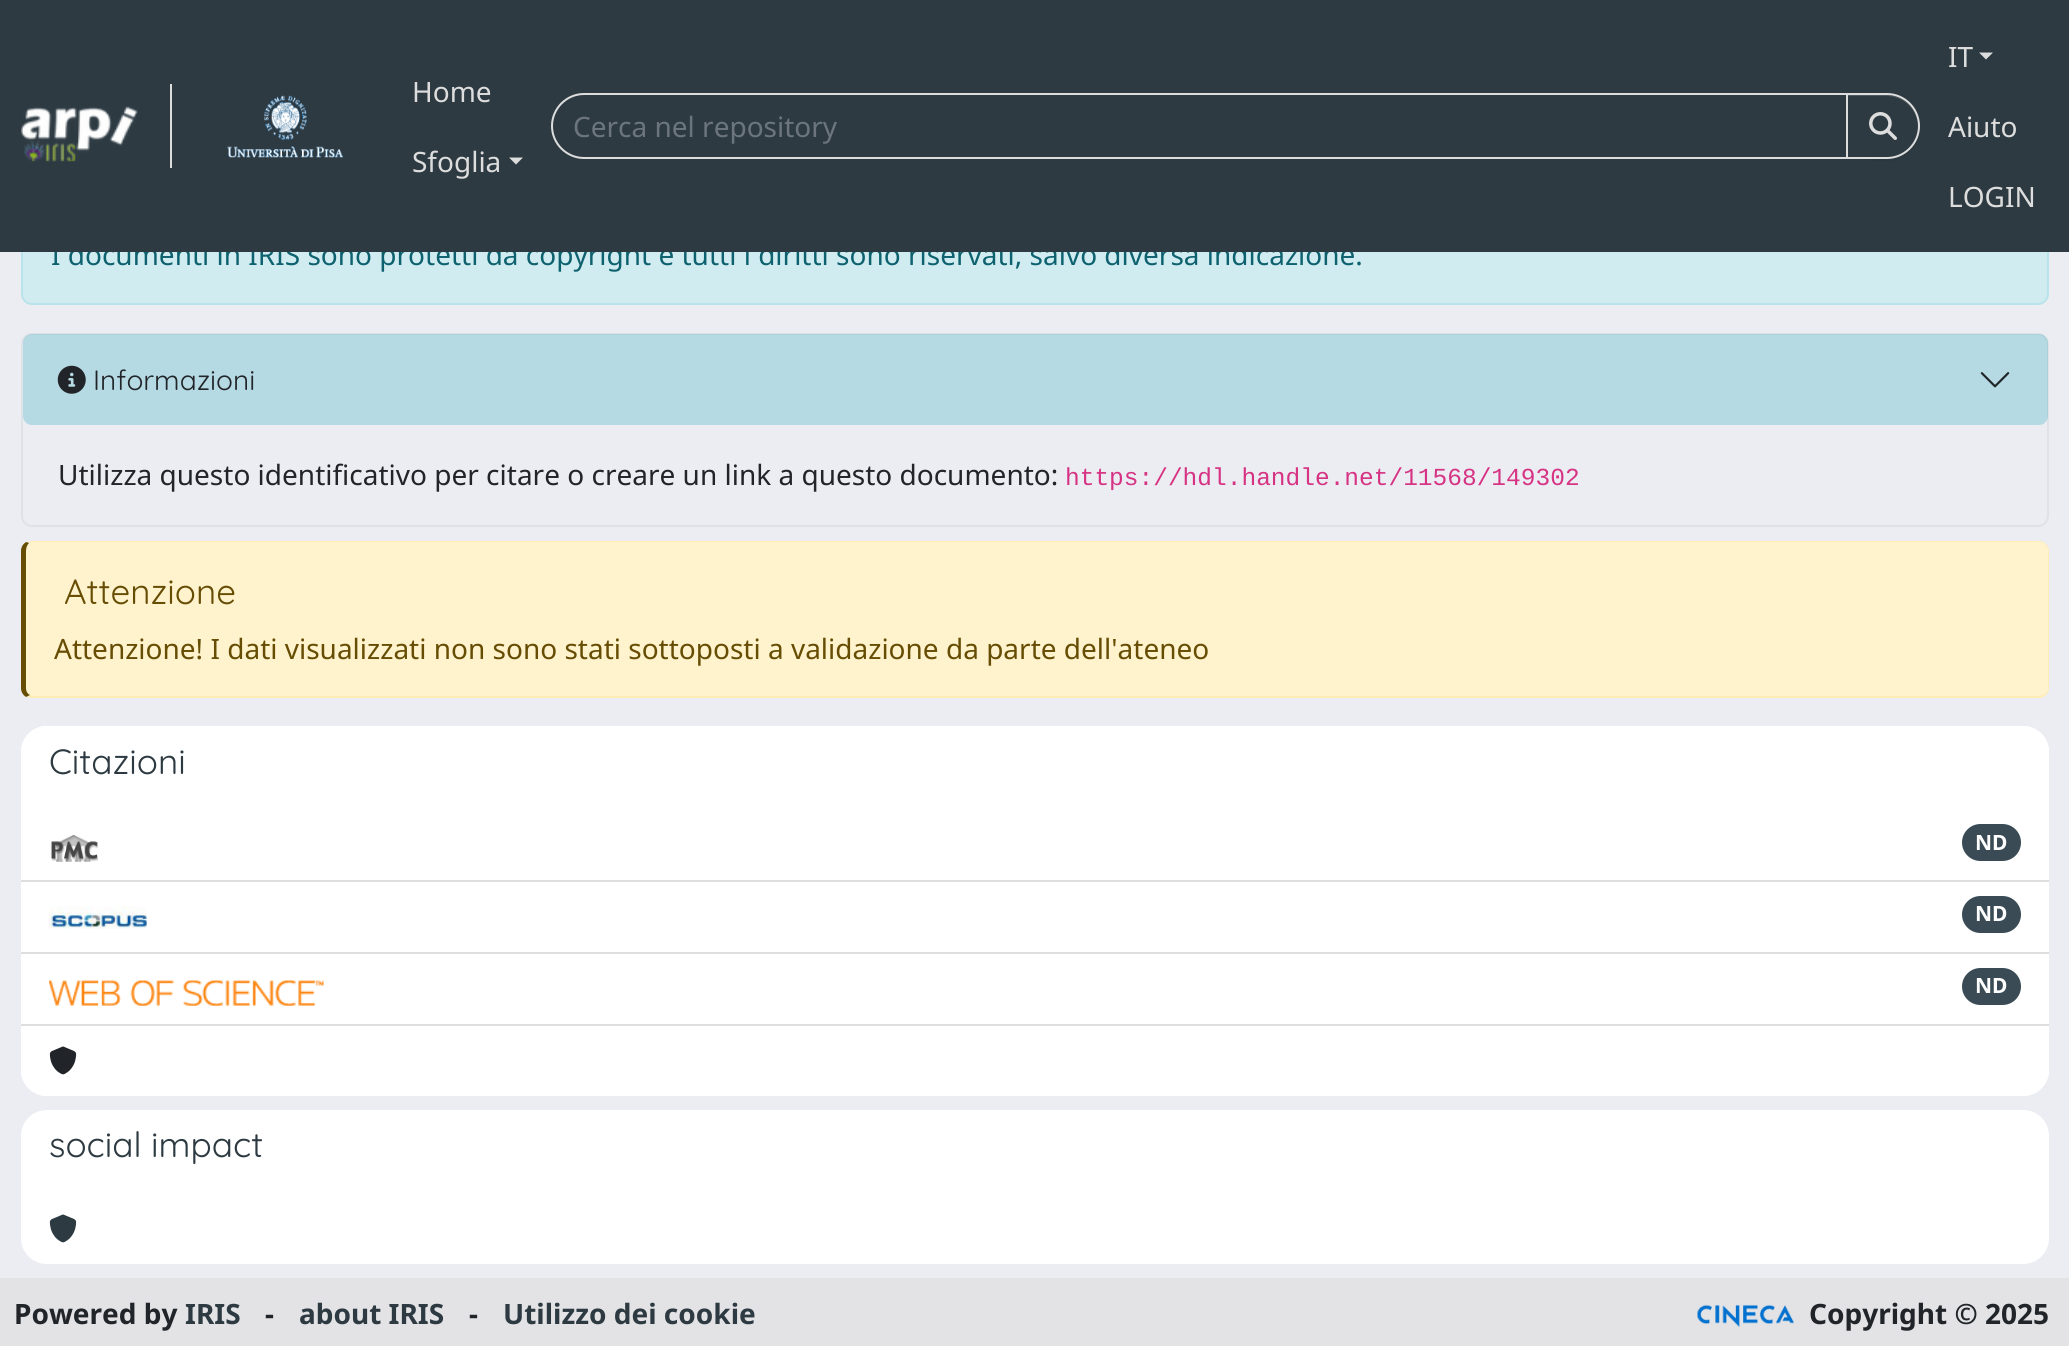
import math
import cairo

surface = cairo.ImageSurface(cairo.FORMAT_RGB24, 2069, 1346)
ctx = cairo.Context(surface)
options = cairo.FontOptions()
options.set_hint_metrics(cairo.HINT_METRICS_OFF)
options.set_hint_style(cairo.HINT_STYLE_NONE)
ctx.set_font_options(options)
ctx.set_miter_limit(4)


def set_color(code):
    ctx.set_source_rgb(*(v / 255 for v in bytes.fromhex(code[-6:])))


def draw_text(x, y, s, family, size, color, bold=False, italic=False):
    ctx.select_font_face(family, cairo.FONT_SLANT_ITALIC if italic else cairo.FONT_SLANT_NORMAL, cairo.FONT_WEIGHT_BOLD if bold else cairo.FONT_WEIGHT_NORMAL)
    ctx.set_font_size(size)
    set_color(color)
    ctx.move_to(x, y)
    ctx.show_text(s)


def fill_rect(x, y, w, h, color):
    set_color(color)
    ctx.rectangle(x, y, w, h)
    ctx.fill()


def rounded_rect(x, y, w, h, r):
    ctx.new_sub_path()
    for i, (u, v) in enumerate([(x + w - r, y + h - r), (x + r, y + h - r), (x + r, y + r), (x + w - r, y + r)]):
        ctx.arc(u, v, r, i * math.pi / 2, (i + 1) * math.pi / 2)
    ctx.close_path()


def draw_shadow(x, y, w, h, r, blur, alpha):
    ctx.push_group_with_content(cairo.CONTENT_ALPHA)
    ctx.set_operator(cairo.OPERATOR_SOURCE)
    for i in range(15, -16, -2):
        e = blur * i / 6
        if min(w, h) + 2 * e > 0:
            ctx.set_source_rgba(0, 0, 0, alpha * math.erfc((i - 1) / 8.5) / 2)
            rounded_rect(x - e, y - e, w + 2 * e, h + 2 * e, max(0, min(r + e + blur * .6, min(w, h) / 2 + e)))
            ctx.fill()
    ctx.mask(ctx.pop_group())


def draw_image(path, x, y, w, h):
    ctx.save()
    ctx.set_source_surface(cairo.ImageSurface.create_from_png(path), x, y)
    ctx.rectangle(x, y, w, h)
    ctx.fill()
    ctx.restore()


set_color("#ecedf2")
ctx.paint()
set_color("#d1ecf1")
rounded_rect(22, 204, 2026, 100, 10)
ctx.fill_preserve()
set_color("#b9e3ea")
ctx.stroke()
draw_text(51, 265, "I documenti in IRIS sono protetti da copyright e tutti i diritti sono riservati, salvo diversa indicazione.", "Noto Sans", 28, "#0e616e")
fill_rect(0, 0, 2069, 252, "#2d3a42")
fill_rect(170, 84, 2, 84, "#dddddd")
draw_image("assets/img1.png", 21, 106, 117, 56)
draw_image("assets/img2.png", 227, 95, 116, 63)
draw_text(412, 102, "Home", "Noto Sans", 28, "#dddddd")
draw_text(412, 172, "Sfoglia", "Noto Sans", 28, "#dddddd")
ctx.new_path()
ctx.move_to(509, 157.5)
ctx.line_to(523, 157.5)
ctx.line_to(516, 164.5)
ctx.close_path()
ctx.fill()
ctx.new_path()
ctx.move_to(584, 94)
ctx.line_to(1847, 94)
ctx.line_to(1847, 158)
ctx.line_to(584, 158)
ctx.curve_to(566.5, 158, 552, 143.5, 552, 126)
ctx.curve_to(552, 108.5, 566.5, 94, 584, 94)
ctx.close_path()
ctx.stroke()
draw_text(573, 137, "Cerca nel repository", "Noto Sans", 28, "#6c757d")
set_color("#000000")
draw_shadow(1846, 95, 74, 66, 33, 1, 0.07)
set_color("#2d3a42")
ctx.new_path()
ctx.move_to(1846, 93)
ctx.line_to(1887, 93)
ctx.curve_to(1905, 93, 1920, 108, 1920, 126)
ctx.curve_to(1920, 144, 1905, 159, 1887, 159)
ctx.line_to(1846, 159)
ctx.close_path()
ctx.fill()
set_color("#4d585e")
ctx.new_path()
ctx.move_to(1848, 96)
ctx.line_to(1886, 96)
ctx.curve_to(1904, 96, 1918, 110, 1918, 127)
ctx.line_to(1918, 126)
ctx.curve_to(1918, 109, 1904, 95, 1886, 95)
ctx.line_to(1848, 95)
ctx.close_path()
ctx.fill()
ctx.new_path()
ctx.move_to(1847, 94)
ctx.line_to(1887, 94)
ctx.curve_to(1904.5, 94, 1919, 108.5, 1919, 126)
ctx.curve_to(1919, 143.5, 1904.5, 158, 1887, 158)
ctx.line_to(1847, 158)
ctx.close_path()
set_color("#dddddd")
ctx.stroke()
draw_image("assets/img3.png", 1869, 112, 28, 28)
draw_text(1948, 67, "IT", "Noto Sans", 28, "#dddddd")
ctx.new_path()
ctx.move_to(1979, 52.5)
ctx.line_to(1993, 52.5)
ctx.line_to(1986, 59.5)
ctx.close_path()
ctx.fill()
draw_text(1948, 137, "Aiuto", "Noto Sans", 28, "#dddddd")
draw_text(1948, 207, "LOGIN", "Noto Sans", 28, "#dddddd")
rounded_rect(22, 334, 2026, 192, 10)
set_color("#dee2e6")
ctx.stroke()
ctx.set_source_rgba(0.09, 0.635, 0.722, 0.25)
rounded_rect(23, 334, 2025, 91, 9)
ctx.fill()
draw_image("assets/img4.png", 57, 365, 29, 29)
draw_text(93, 390, "Informazioni", "Quicksand", 28, "#212529")
draw_image("assets/img5.png", 1980, 372, 30, 16)
draw_text(58, 485, "Utilizza questo identificativo per citare o creare un link a questo documento:", "Noto Sans", 28, "#212529")
draw_text(1065, 485, "https://hdl.handle.net/11568/149302", "Liberation Mono", 24.5, "#d63384")
set_color("#fff3cd")
ctx.new_path()
ctx.move_to(32, 542)
ctx.line_to(2039, 542)
ctx.curve_to(2044, 542, 2048, 546, 2048, 551)
ctx.line_to(2048, 688)
ctx.curve_to(2048, 693, 2044, 696, 2039, 696)
ctx.line_to(32, 696)
ctx.curve_to(29, 696, 26, 693, 26, 688)
ctx.line_to(26, 551)
ctx.curve_to(26, 546, 29, 542, 32, 542)
ctx.close_path()
ctx.fill()
set_color("#ffecb5")
ctx.new_path()
ctx.move_to(32, 541)
ctx.curve_to(30, 541, 28, 542, 26, 542)
ctx.line_to(29, 543)
ctx.curve_to(30, 543, 31, 542, 32, 542)
ctx.line_to(2039, 542)
ctx.curve_to(2042, 542, 2044, 543, 2045, 545)
ctx.line_to(2046, 544)
ctx.curve_to(2044, 542, 2042, 541, 2039, 541)
ctx.close_path()
ctx.fill()
ctx.new_path()
ctx.move_to(2046, 544)
ctx.curve_to(2048, 546, 2049, 548, 2049, 551)
ctx.line_to(2049, 688)
ctx.curve_to(2049, 691, 2048, 694, 2046, 695)
ctx.line_to(2045, 694)
ctx.curve_to(2047, 693, 2048, 691, 2048, 688)
ctx.line_to(2048, 551)
ctx.curve_to(2048, 548, 2047, 546, 2045, 545)
ctx.close_path()
ctx.fill()
ctx.new_path()
ctx.move_to(2046, 695)
ctx.curve_to(2044, 697, 2042, 698, 2039, 698)
ctx.line_to(32, 698)
ctx.curve_to(30, 698, 28, 697, 26, 697)
ctx.line_to(30, 695)
ctx.line_to(32, 696)
ctx.line_to(2039, 696)
ctx.curve_to(2041, 696, 2043, 695, 2045, 694)
ctx.close_path()
ctx.fill()
set_color("#664d03")
ctx.new_path()
ctx.move_to(21, 551)
ctx.line_to(21, 688)
ctx.curve_to(21, 692, 23, 695, 26, 697)
ctx.line_to(30, 695)
ctx.curve_to(28, 694, 26, 692, 26, 688)
ctx.line_to(26, 551)
ctx.curve_to(26, 548, 27, 545, 29, 543)
ctx.line_to(26, 542)
ctx.curve_to(23, 544, 21, 547, 21, 551)
ctx.close_path()
ctx.fill()
draw_text(64, 604, "Attenzione", "Quicksand", 35, "#664d03")
draw_text(54, 659, "Attenzione! I dati visualizzati non sono stati sottoposti a validazione da parte dell'ateneo", "Noto Sans", 28, "#664d03")
set_color("#ffffff")
rounded_rect(21, 726, 2028, 370, 26)
ctx.fill()
ctx.new_path()
ctx.move_to(47, 726)
ctx.line_to(2023, 726)
ctx.curve_to(2037.5, 726, 2049, 737.5, 2049, 752)
ctx.line_to(2049, 810)
ctx.line_to(21, 810)
ctx.line_to(21, 752)
ctx.curve_to(21, 737.5, 32.5, 726, 47, 726)
ctx.close_path()
ctx.fill()
draw_text(49, 774, "Citazioni", "Quicksand", 35, "#2d3a42")
fill_rect(21, 880, 2028, 2, "#dfdfdf")
draw_image("assets/img6.png", 50, 834, 48, 28)
set_color("#3a4b55")
rounded_rect(1962, 824, 59, 37, 18.5)
ctx.fill()
draw_text(1975, 850, "ND", "Noto Sans", 21, "#ffffff", bold=True)
fill_rect(21, 952, 2028, 2, "#dfdfdf")
draw_image("assets/img7.png", 49, 906, 98, 23)
set_color("#3a4b55")
rounded_rect(1962, 896, 59, 37, 18.5)
ctx.fill()
draw_text(1975, 921, "ND", "Noto Sans", 21, "#ffffff", bold=True)
fill_rect(21, 1024, 2028, 2, "#dfdfdf")
draw_image("assets/img8.png", 49, 980, 275, 26)
set_color("#3a4b55")
rounded_rect(1962, 968, 59, 37, 18.5)
ctx.fill()
draw_text(1975, 993, "ND", "Noto Sans", 21, "#ffffff", bold=True)
ctx.new_path()
ctx.move_to(21, 1026)
ctx.line_to(2049, 1026)
ctx.line_to(2049, 1070)
ctx.curve_to(2049, 1084.5, 2037.5, 1096, 2023, 1096)
ctx.line_to(47, 1096)
ctx.curve_to(32.5, 1096, 21, 1084.5, 21, 1070)
ctx.close_path()
ctx.fill()
draw_image("assets/img9.png", 49, 1046, 28, 29)
ctx.new_path()
ctx.move_to(47, 1110)
ctx.line_to(2023, 1110)
ctx.curve_to(2037.5, 1110, 2049, 1121.5, 2049, 1136)
ctx.line_to(2049, 1194)
ctx.line_to(21, 1194)
ctx.line_to(21, 1136)
ctx.curve_to(21, 1121.5, 32.5, 1110, 47, 1110)
ctx.close_path()
ctx.fill()
draw_text(49, 1157, "social impact", "Quicksand", 35, "#2d3a42")
set_color("#ffffff")
ctx.new_path()
ctx.move_to(21, 1194)
ctx.line_to(2049, 1194)
ctx.line_to(2049, 1238)
ctx.curve_to(2049, 1252.5, 2037.5, 1264, 2023, 1264)
ctx.line_to(47, 1264)
ctx.curve_to(32.5, 1264, 21, 1252.5, 21, 1238)
ctx.close_path()
ctx.fill()
draw_image("assets/img10.png", 49, 1214, 28, 29)
fill_rect(0, 1278, 2069, 68, "#e3e3e5")
draw_text(14, 1324, "Powered by", "Noto Sans", 28, "#212529", bold=True)
draw_text(185, 1324, "IRIS", "Noto Sans", 28, "#2d3a42", bold=True)
draw_text(265, 1324, "-", "Noto Sans", 28, "#212529", bold=True)
draw_text(299, 1324, "about IRIS", "Noto Sans", 28, "#2d3a42", bold=True)
draw_text(469, 1324, "-", "Noto Sans", 28, "#212529", bold=True)
draw_text(503, 1324, "Utilizzo dei cookie", "Noto Sans", 28, "#2d3a42", bold=True)
draw_image("assets/img11.png", 1697, 1304, 97, 23)
draw_text(1809, 1324, "Copyright © 2025", "Noto Sans", 28, "#212529", bold=True)
surface.write_to_png("output.png")
